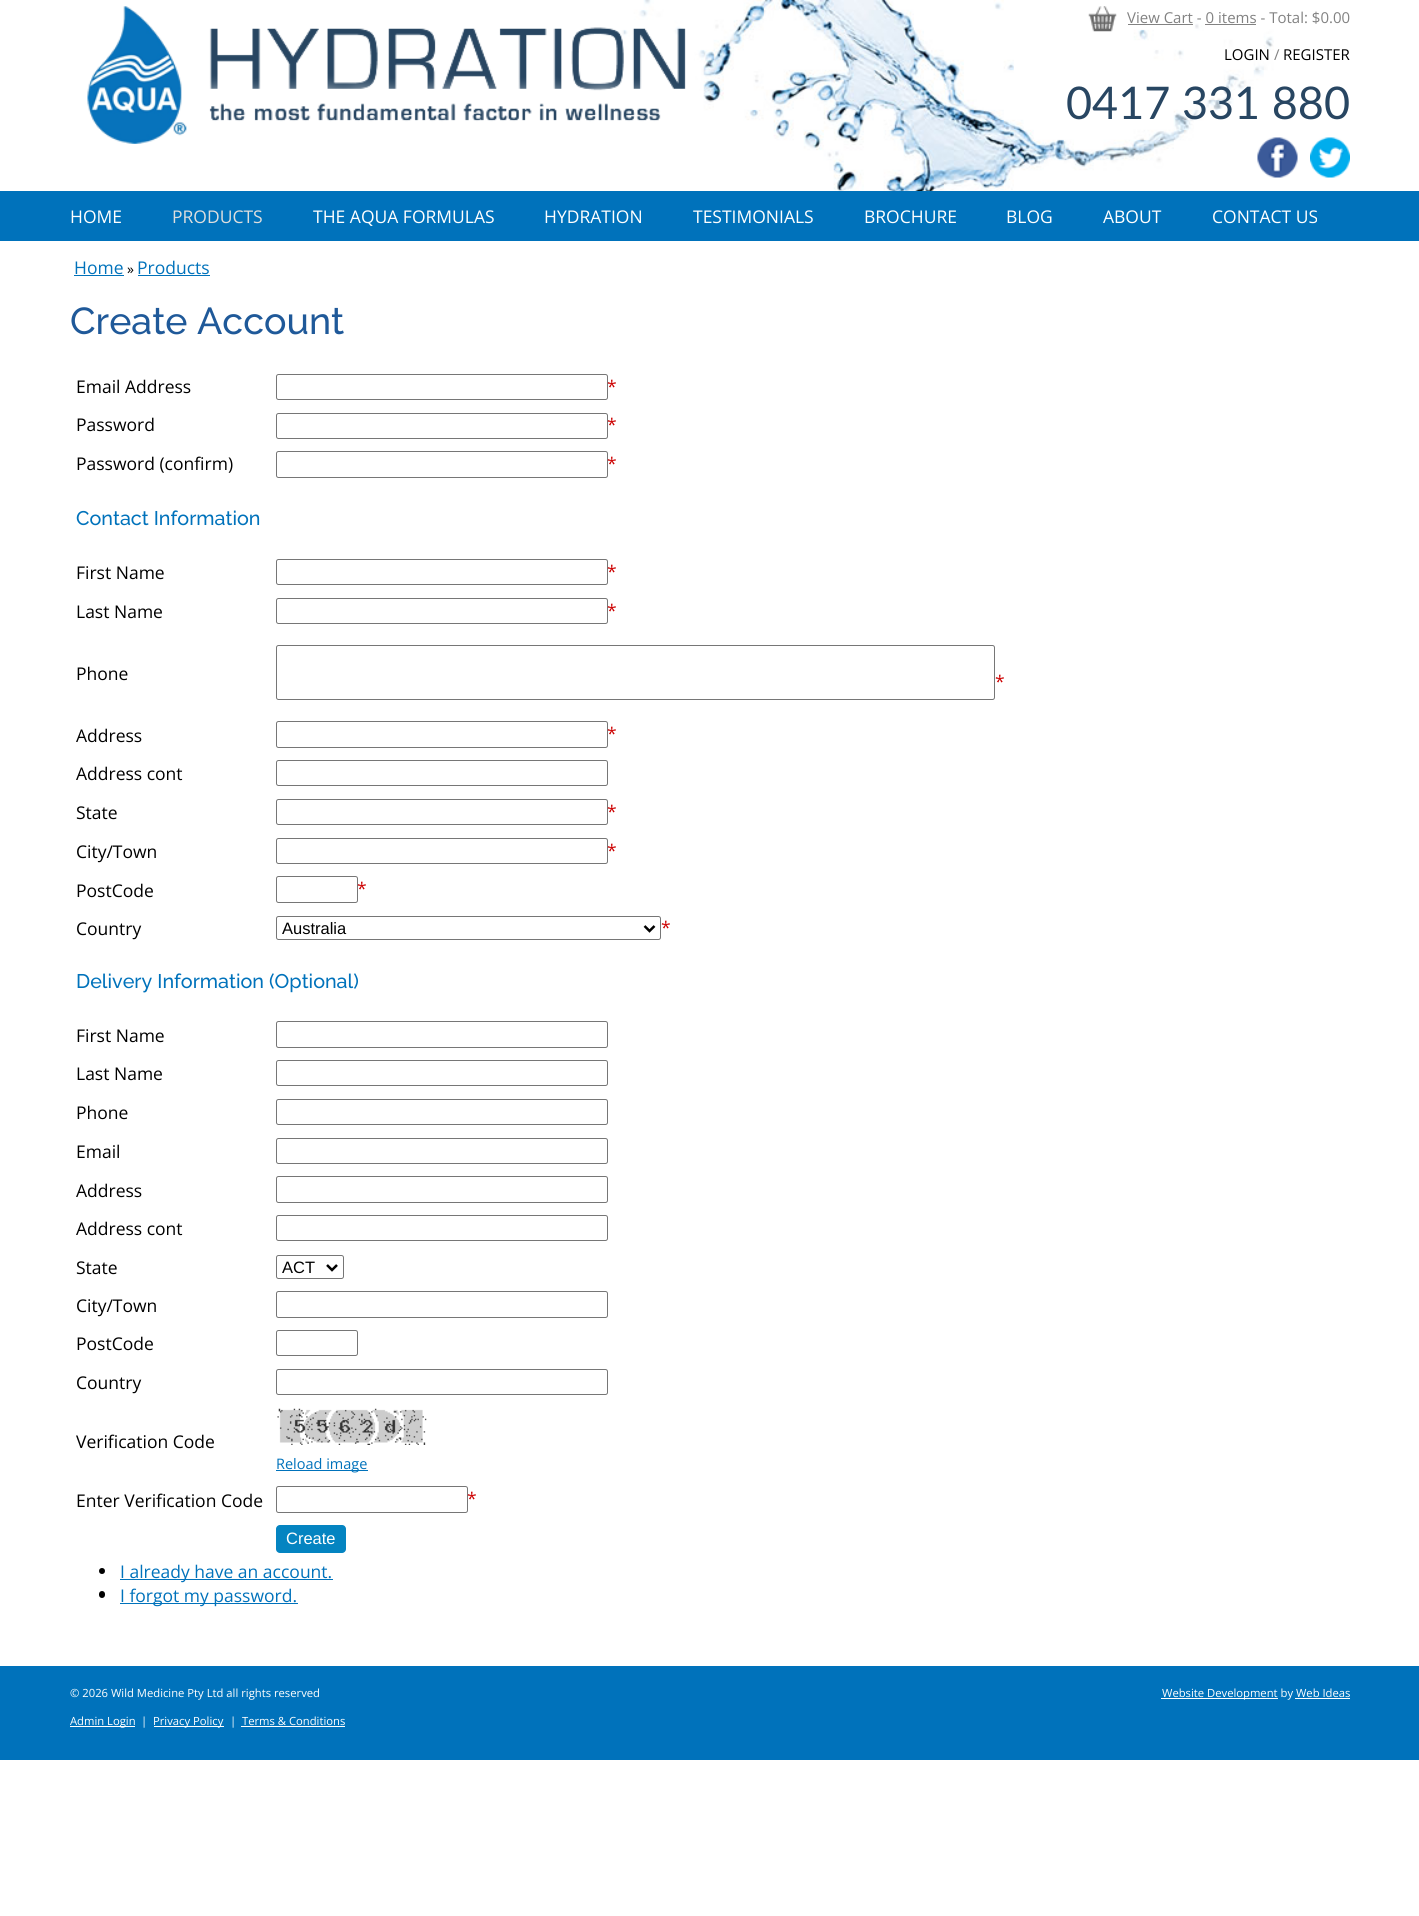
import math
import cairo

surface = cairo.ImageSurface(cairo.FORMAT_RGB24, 1419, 1916)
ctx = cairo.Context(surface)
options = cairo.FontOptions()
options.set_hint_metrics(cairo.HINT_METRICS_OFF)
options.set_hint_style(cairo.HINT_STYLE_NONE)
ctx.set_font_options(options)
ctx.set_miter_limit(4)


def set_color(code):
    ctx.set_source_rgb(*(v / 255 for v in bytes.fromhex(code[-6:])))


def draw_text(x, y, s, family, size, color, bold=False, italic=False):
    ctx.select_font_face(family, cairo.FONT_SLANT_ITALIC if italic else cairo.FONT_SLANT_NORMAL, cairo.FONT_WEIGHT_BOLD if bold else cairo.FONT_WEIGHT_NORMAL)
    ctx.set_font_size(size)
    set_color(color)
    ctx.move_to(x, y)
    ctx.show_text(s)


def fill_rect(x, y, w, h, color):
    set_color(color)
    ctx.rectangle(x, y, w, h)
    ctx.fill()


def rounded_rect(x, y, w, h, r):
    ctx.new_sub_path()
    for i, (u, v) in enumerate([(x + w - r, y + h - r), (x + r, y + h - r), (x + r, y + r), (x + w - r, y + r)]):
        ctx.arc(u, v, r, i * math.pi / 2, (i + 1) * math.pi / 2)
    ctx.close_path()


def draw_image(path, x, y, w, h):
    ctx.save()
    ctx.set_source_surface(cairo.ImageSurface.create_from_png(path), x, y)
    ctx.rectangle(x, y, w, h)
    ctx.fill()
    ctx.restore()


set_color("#ffffff")
ctx.paint()
draw_image("assets/img1.png", 614, 0, 660, 191)
draw_image("assets/img2.png", 87, 6, 630, 138)
draw_image("assets/img3.png", 1088, 6, 29, 26)
draw_text(1127, 23, "View Cart - 0 items - Total: $0.00", "Open Sans", 15, "#828282")
fill_rect(1128, 24, 65, 1, "#828282")
fill_rect(1205, 24, 51, 1, "#828282")
draw_text(1224, 60, "LOGIN", "Open Sans", 15, "#000000")
draw_text(1274, 60, "/", "Open Sans", 15, "#828282")
draw_text(1283, 60, "REGISTER", "Open Sans", 15, "#000000")
draw_text(1066, 119, "0417 331 880", "Lato", 45, "#284662")
draw_image("assets/img4.png", 1257, 137, 41, 41)
draw_image("assets/img5.png", 1310, 137, 40, 41)
fill_rect(0, 191, 1419, 50, "#0072bb")
draw_text(70, 223, "HOME", "Open Sans", 17.5, "#ffffff")
draw_text(172, 223, "PRODUCTS", "Open Sans", 17.5, "#dedede")
draw_text(313, 223, "THE AQUA FORMULAS", "Open Sans", 17.5, "#ffffff")
draw_text(544, 223, "HYDRATION", "Open Sans", 17.5, "#ffffff")
draw_text(693, 223, "TESTIMONIALS", "Open Sans", 17.5, "#ffffff")
draw_text(864, 223, "BROCHURE", "Open Sans", 17.5, "#ffffff")
draw_text(1006, 223, "BLOG", "Open Sans", 17.5, "#ffffff")
draw_text(1103, 223, "ABOUT", "Open Sans", 17.5, "#ffffff")
draw_text(1212, 223, "CONTACT US", "Open Sans", 17.5, "#ffffff")
draw_text(74, 274, "Home", "Open Sans", 17.5, "#0072bb")
draw_text(127, 274, "»", "Open Sans", 14, "#000000")
fill_rect(74, 275, 50, 1, "#0072bb")
fill_rect(138, 275, 72, 1, "#0072bb")
draw_text(137, 274, "Products", "Open Sans", 17.5, "#0072bb")
draw_text(70, 334, "Create Account", "Raleway Medium", 37.5, "#1f5999")
draw_text(76, 393, "Email Address", "Open Sans", 17.5, "#000000")
rounded_rect(276.5, 374.5, 331, 25, 2)
set_color("#767676")
ctx.set_line_width(1)
ctx.stroke()
draw_text(607, 393, "*", "Open Sans", 17.5, "#cc0000")
draw_text(76, 431, "Password", "Open Sans", 17.5, "#000000")
rounded_rect(276.5, 413.5, 331, 25, 2)
set_color("#767676")
ctx.stroke()
draw_text(607, 431, "*", "Open Sans", 17.5, "#cc0000")
draw_text(76, 470, "Password (confirm)", "Open Sans", 17.5, "#000000")
rounded_rect(276.5, 451.5, 331, 26, 2)
set_color("#767676")
ctx.stroke()
draw_text(607, 470, "*", "Open Sans", 17.5, "#cc0000")
draw_text(76, 525, "Contact Information", "Raleway Medium", 19.75, "#0072bb")
draw_text(76, 579, "First Name", "Open Sans", 17.5, "#000000")
rounded_rect(276.5, 559.5, 331, 25, 2)
set_color("#767676")
ctx.stroke()
draw_text(607, 578, "*", "Open Sans", 17.5, "#cc0000")
draw_text(76, 618, "Last Name", "Open Sans", 17.5, "#000000")
rounded_rect(276.5, 598.5, 331, 25, 2)
set_color("#767676")
ctx.stroke()
draw_text(607, 617, "*", "Open Sans", 17.5, "#cc0000")
draw_text(76, 680, "Phone", "Open Sans", 17.5, "#000000")
rounded_rect(276.5, 645.5, 718, 54, 2)
set_color("#767676")
ctx.stroke()
draw_text(995, 688, "*", "Open Sans", 17.5, "#cc0000")
draw_text(76, 742, "Address", "Open Sans", 17.5, "#000000")
rounded_rect(276.5, 721.5, 331, 26, 2)
set_color("#767676")
ctx.stroke()
draw_text(607, 740, "*", "Open Sans", 17.5, "#cc0000")
draw_text(76, 780, "Address cont", "Open Sans", 17.5, "#000000")
rounded_rect(276.5, 760.5, 331, 25, 2)
set_color("#767676")
ctx.stroke()
draw_text(76, 819, "State", "Open Sans", 17.5, "#000000")
rounded_rect(276.5, 799.5, 331, 25, 2)
set_color("#767676")
ctx.stroke()
draw_text(607, 818, "*", "Open Sans", 17.5, "#cc0000")
draw_text(76, 858, "City/Town", "Open Sans", 17.5, "#000000")
rounded_rect(276.5, 838.5, 331, 25, 2)
set_color("#767676")
ctx.stroke()
draw_text(607, 857, "*", "Open Sans", 17.5, "#cc0000")
draw_text(76, 897, "PostCode", "Open Sans", 17.5, "#000000")
rounded_rect(276.5, 876.5, 81, 26, 2)
set_color("#767676")
ctx.stroke()
draw_text(357, 895, "*", "Open Sans", 17.5, "#cc0000")
draw_text(76, 935, "Country", "Open Sans", 17.5, "#000000")
rounded_rect(276.5, 916.5, 384, 23, 2)
set_color("#767676")
ctx.stroke()
ctx.new_path()
ctx.move_to(644.5, 926)
ctx.line_to(649.5, 931)
ctx.line_to(654.5, 926)
set_color("#000000")
ctx.set_line_width(2.5)
ctx.stroke()
draw_text(282, 934, "Australia", "Liberation Sans", 16.5, "#000000")
draw_text(661, 934, "*", "Open Sans", 17.5, "#cc0000")
draw_text(76, 988, "Delivery Information (Optional)", "Raleway Medium", 19.75, "#0072bb")
draw_text(76, 1042, "First Name", "Open Sans", 17.5, "#000000")
rounded_rect(276.5, 1021.5, 331, 26, 2)
set_color("#767676")
ctx.set_line_width(1)
ctx.stroke()
draw_text(76, 1080, "Last Name", "Open Sans", 17.5, "#000000")
rounded_rect(276.5, 1060.5, 331, 25, 2)
set_color("#767676")
ctx.stroke()
draw_text(76, 1119, "Phone", "Open Sans", 17.5, "#000000")
rounded_rect(276.5, 1099.5, 331, 25, 2)
set_color("#767676")
ctx.stroke()
draw_text(76, 1158, "Email", "Open Sans", 17.5, "#000000")
rounded_rect(276.5, 1138.5, 331, 25, 2)
set_color("#767676")
ctx.stroke()
draw_text(76, 1197, "Address", "Open Sans", 17.5, "#000000")
rounded_rect(276.5, 1176.5, 331, 26, 2)
set_color("#767676")
ctx.stroke()
draw_text(76, 1235, "Address cont", "Open Sans", 17.5, "#000000")
rounded_rect(276.5, 1215.5, 331, 25, 2)
set_color("#767676")
ctx.stroke()
draw_text(76, 1274, "State", "Open Sans", 17.5, "#000000")
rounded_rect(276.5, 1255.5, 67, 23, 2)
set_color("#767676")
ctx.stroke()
ctx.new_path()
ctx.move_to(327, 1265)
ctx.line_to(332, 1270)
ctx.line_to(337, 1265)
set_color("#000000")
ctx.set_line_width(2.5)
ctx.stroke()
draw_text(282, 1273, "ACT", "Liberation Sans", 16.5, "#000000")
draw_text(76, 1312, "City/Town", "Open Sans", 17.5, "#000000")
rounded_rect(276.5, 1291.5, 331, 26, 2)
set_color("#767676")
ctx.set_line_width(1)
ctx.stroke()
draw_text(76, 1350, "PostCode", "Open Sans", 17.5, "#000000")
rounded_rect(276.5, 1330.5, 81, 25, 2)
set_color("#767676")
ctx.stroke()
draw_text(76, 1389, "Country", "Open Sans", 17.5, "#000000")
rounded_rect(276.5, 1369.5, 331, 25, 2)
set_color("#767676")
ctx.stroke()
draw_text(76, 1448, "Verification Code", "Open Sans", 17.5, "#000000")
draw_image("assets/img6.png", 277, 1408, 150, 37)
fill_rect(276, 1470, 92, 1, "#0072bb")
draw_text(276, 1469, "Reload image", "Open Sans", 14.5, "#0072bb")
draw_text(76, 1507, "Enter Verification Code", "Open Sans", 17.5, "#000000")
rounded_rect(276.5, 1486.5, 191, 26, 2)
set_color("#767676")
ctx.stroke()
draw_text(467, 1505, "*", "Open Sans", 17.5, "#cc0000")
set_color("#0484c1")
rounded_rect(276, 1525, 70, 28, 4)
ctx.fill()
draw_text(286, 1544, "Create", "Liberation Sans", 16.5, "#ffffff")
set_color("#000000")
ctx.new_path()
ctx.arc(102, 1571, 3, 0, 2 * math.pi)
ctx.fill()
fill_rect(120, 1579, 213, 1, "#0072bb")
draw_text(120, 1578, "I already have an account.", "Open Sans", 17.5, "#0072bb")
set_color("#000000")
rounded_rect(99, 1591, 6, 7, 3)
ctx.fill()
fill_rect(120, 1603, 178, 1, "#0072bb")
draw_text(120, 1602, "I forgot my password.", "Open Sans", 17.5, "#0072bb")
fill_rect(0, 1666, 1419, 94, "#0072bb")
draw_text(70, 1697, "© 2026 Wild Medicine Pty Ltd all rights reserved", "Open Sans", 11.25, "#ffffff")
fill_rect(70, 1726, 65, 1, "#ffffff")
draw_text(70, 1725, "Admin Login", "Open Sans", 11.25, "#ffffff")
draw_text(141, 1725, "|", "Open Sans", 11.25, "#ffffff")
fill_rect(154, 1726, 70, 1, "#ffffff")
draw_text(153, 1725, "Privacy Policy", "Open Sans", 11.25, "#ffffff")
draw_text(230, 1725, "|", "Open Sans", 11.25, "#ffffff")
draw_text(242, 1725, "Terms & Conditions", "Open Sans", 11.25, "#ffffff")
fill_rect(241, 1726, 104, 1, "#ffffff")
fill_rect(1161, 1698, 117, 1, "#ffffff")
draw_text(1162, 1697, "Website Development by Web Ideas", "Open Sans", 11.25, "#ffffff")
fill_rect(1295, 1698, 55, 1, "#ffffff")
surface.write_to_png("output.png")
